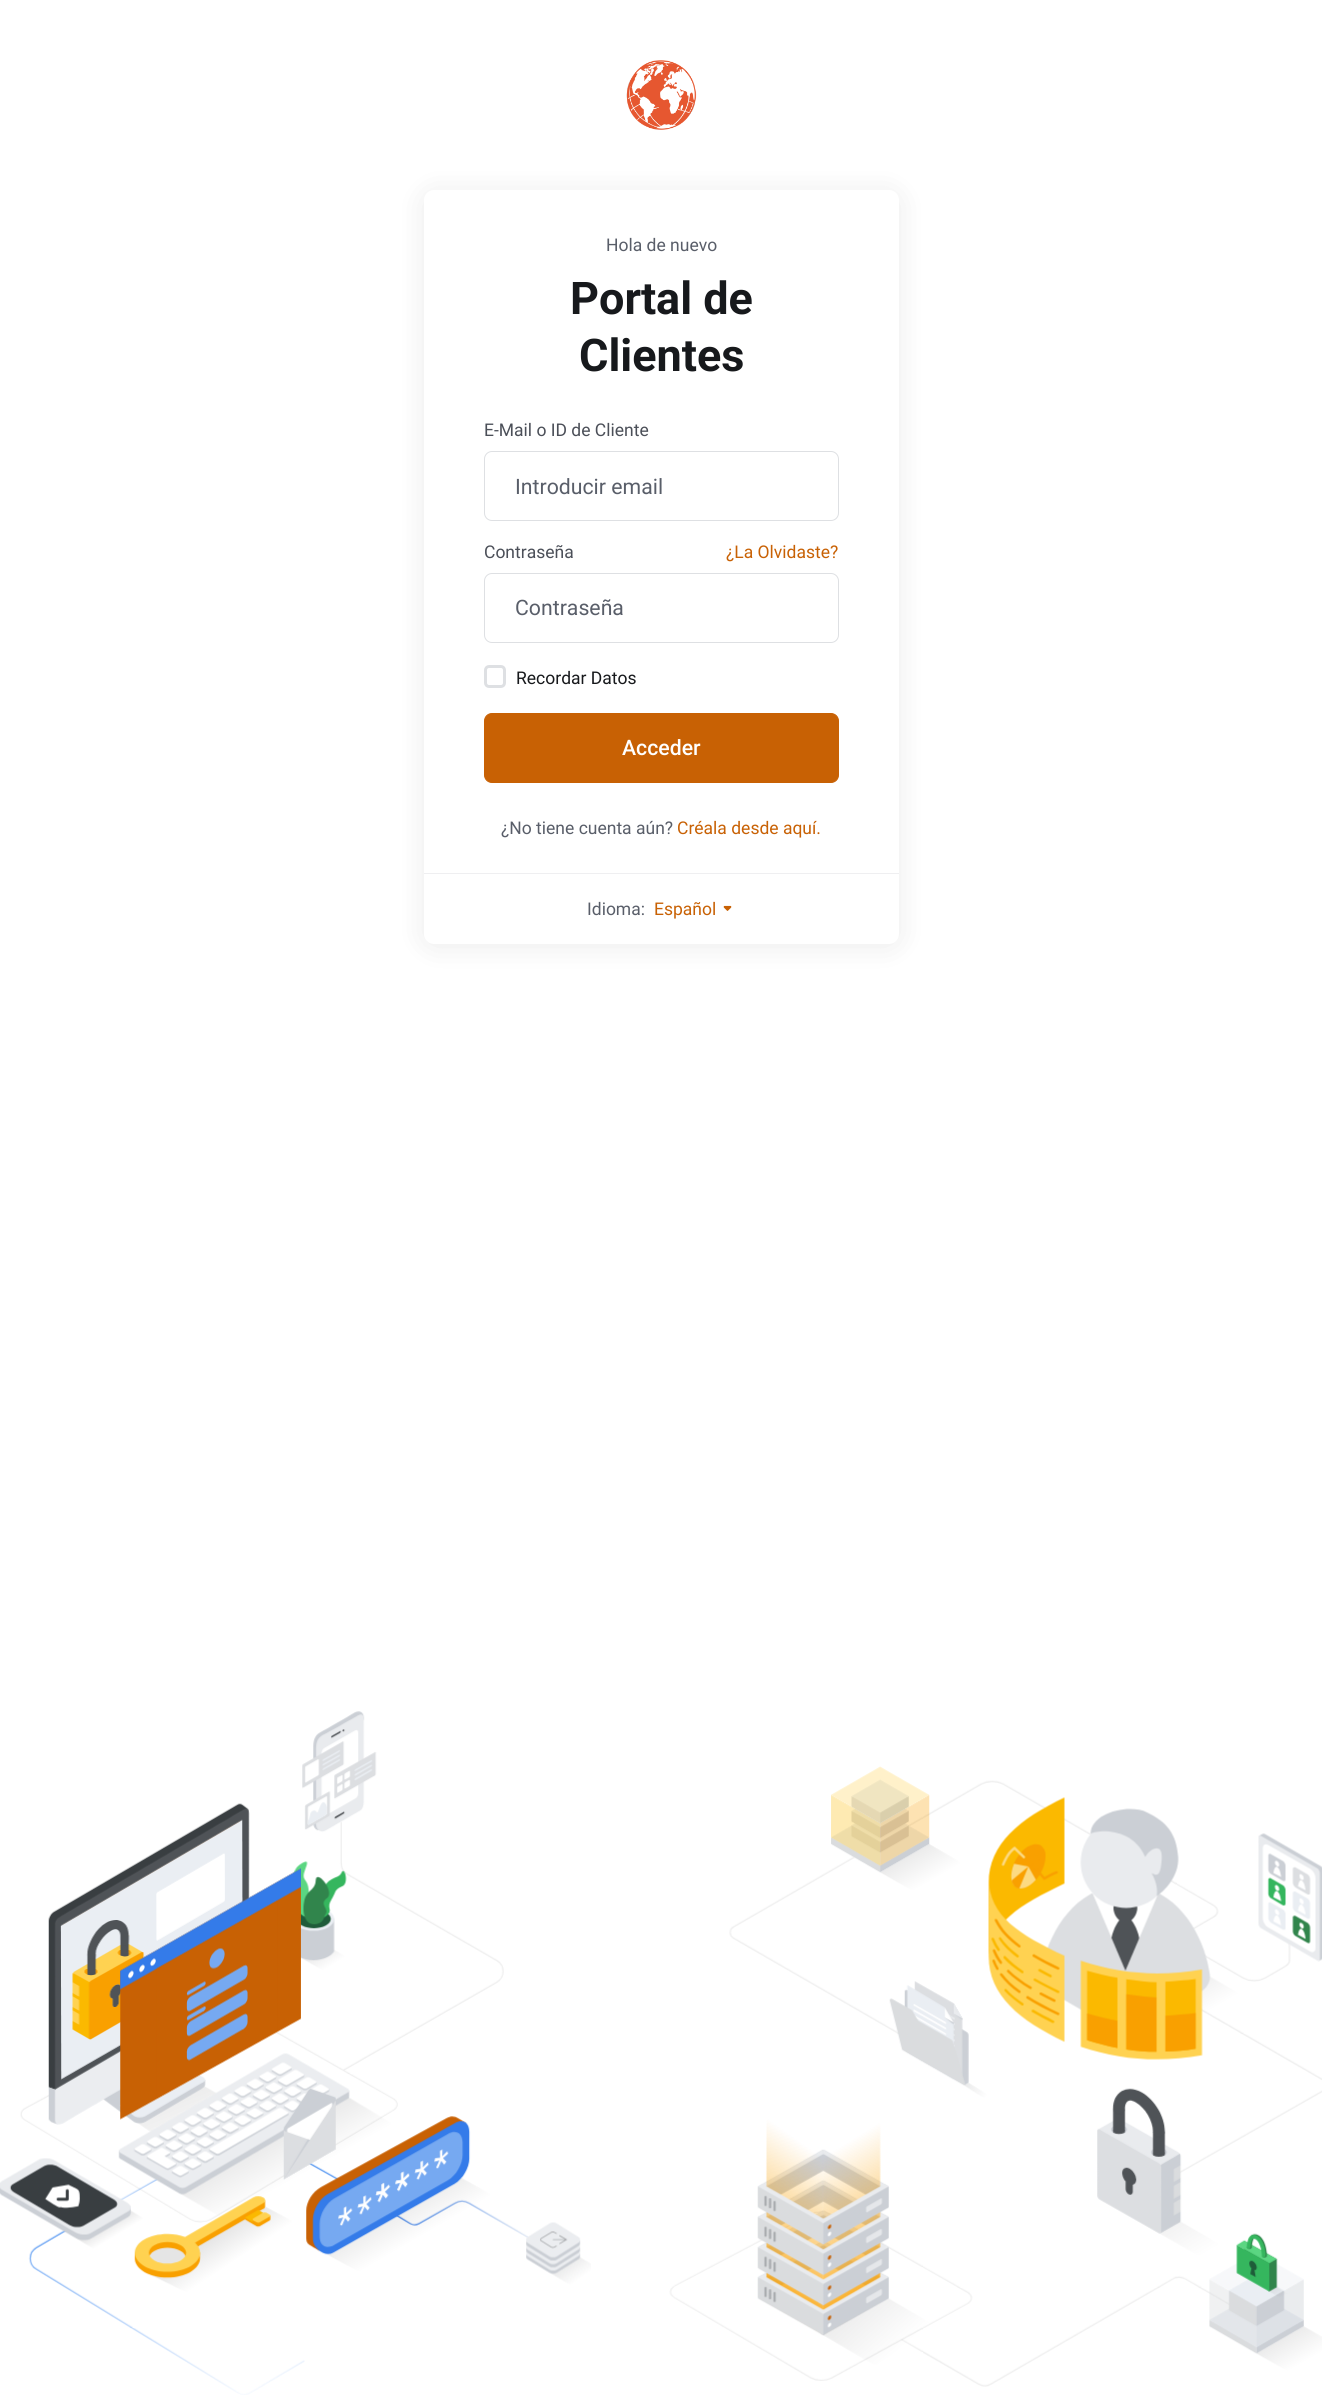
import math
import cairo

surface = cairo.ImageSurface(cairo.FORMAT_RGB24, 1322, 2396)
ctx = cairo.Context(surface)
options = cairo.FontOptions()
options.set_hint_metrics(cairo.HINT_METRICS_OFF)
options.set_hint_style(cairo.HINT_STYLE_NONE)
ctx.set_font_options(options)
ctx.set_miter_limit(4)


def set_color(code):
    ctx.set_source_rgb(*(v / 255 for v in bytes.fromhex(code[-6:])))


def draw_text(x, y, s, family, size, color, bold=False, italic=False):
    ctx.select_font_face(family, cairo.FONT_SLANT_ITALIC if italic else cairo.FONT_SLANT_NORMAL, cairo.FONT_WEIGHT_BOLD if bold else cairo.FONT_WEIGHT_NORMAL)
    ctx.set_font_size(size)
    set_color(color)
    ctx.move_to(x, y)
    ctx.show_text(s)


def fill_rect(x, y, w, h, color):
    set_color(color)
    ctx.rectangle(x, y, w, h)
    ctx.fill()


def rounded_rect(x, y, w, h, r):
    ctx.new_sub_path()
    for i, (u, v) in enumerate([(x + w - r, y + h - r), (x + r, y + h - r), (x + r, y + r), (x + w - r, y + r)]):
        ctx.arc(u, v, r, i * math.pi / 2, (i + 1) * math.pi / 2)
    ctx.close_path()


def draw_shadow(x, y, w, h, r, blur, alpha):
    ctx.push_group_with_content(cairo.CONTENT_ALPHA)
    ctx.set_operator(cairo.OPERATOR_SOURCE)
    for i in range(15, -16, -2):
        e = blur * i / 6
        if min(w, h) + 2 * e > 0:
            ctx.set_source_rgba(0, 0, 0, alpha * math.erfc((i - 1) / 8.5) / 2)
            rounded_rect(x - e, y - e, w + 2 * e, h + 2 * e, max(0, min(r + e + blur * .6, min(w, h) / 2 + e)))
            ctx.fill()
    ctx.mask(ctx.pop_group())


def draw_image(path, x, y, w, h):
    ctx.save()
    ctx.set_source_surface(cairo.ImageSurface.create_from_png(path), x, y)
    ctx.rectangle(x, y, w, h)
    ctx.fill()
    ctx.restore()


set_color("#ffffff")
ctx.paint()
draw_image("assets/img1.png", 626, 60, 71, 70)
set_color("#000000")
draw_shadow(424, 193, 475, 753, 10, 15, 0.08)
set_color("#ffffff")
rounded_rect(424, 190, 475, 754, 10)
ctx.fill()
draw_text(606, 251, "Hola de nuevo", "Roboto", 17.5, "#595e69")
draw_text(570, 314, "Portal de", "Roboto", 45, "#17191c", bold=True)
draw_text(579, 371, "Clientes", "Roboto", 45, "#17191c", bold=True)
draw_text(484, 436, "E-Mail o ID de Cliente", "Roboto", 17.5, "#4b4f58")
rounded_rect(484.5, 451.5, 354, 69, 7.5)
set_color("#dee0e3")
ctx.set_line_width(1)
ctx.stroke()
draw_text(515, 494, "Introducir email", "Roboto", 21.25, "#595e69")
draw_text(484, 558, "Contraseña", "Roboto", 17.5, "#4b4f58")
draw_text(726, 558, "¿La Olvidaste?", "Roboto", 17.5, "#c86104")
rounded_rect(484.5, 573.5, 354, 69, 7.5)
set_color("#dee0e3")
ctx.stroke()
draw_text(515, 615, "Contraseña", "Roboto", 21.25, "#595e69")
rounded_rect(485.5, 666.5, 19, 20, 3.5)
set_color("#dee0e3")
ctx.set_line_width(3)
ctx.stroke()
draw_text(516, 684, "Recordar Datos", "Roboto", 17.5, "#17191c")
set_color("#c86104")
rounded_rect(484.5, 713.5, 354, 69, 7.5)
ctx.fill_preserve()
ctx.set_line_width(1)
ctx.stroke()
draw_text(622, 755, "Acceder", "Roboto Medium", 21.25, "#ffffff")
draw_text(501, 834, "¿No tiene cuenta aún?", "Roboto", 17.5, "#595e69")
draw_text(677, 834, "Créala desde aquí.", "Roboto", 17.5, "#c86104")
fill_rect(424, 873, 475, 1, "#efeff1")
draw_text(587, 915, "Idioma:", "Roboto", 17.5, "#595e69")
draw_text(654, 915, "Español", "Roboto", 17.5, "#c86104")
draw_image("assets/img2.png", 723, 905, 9, 6)
draw_image("assets/img3.png", 0, 1711, 591, 684)
draw_image("assets/img4.png", 669, 1766, 653, 621)
surface.write_to_png("output.png")
